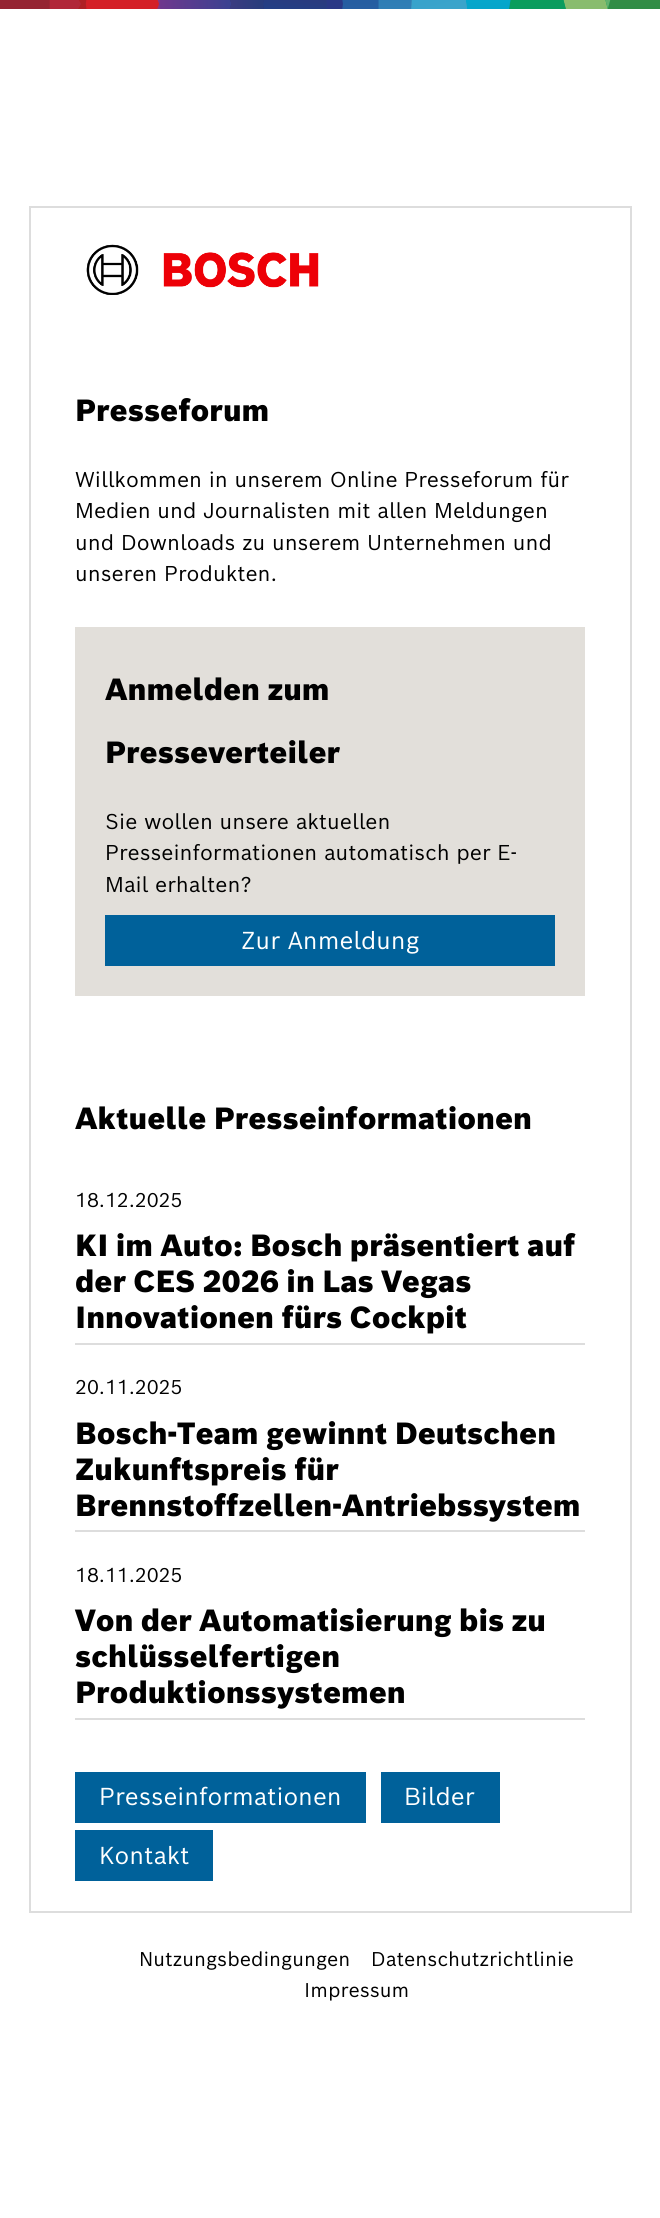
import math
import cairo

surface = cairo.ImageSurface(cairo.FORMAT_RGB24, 660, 2218)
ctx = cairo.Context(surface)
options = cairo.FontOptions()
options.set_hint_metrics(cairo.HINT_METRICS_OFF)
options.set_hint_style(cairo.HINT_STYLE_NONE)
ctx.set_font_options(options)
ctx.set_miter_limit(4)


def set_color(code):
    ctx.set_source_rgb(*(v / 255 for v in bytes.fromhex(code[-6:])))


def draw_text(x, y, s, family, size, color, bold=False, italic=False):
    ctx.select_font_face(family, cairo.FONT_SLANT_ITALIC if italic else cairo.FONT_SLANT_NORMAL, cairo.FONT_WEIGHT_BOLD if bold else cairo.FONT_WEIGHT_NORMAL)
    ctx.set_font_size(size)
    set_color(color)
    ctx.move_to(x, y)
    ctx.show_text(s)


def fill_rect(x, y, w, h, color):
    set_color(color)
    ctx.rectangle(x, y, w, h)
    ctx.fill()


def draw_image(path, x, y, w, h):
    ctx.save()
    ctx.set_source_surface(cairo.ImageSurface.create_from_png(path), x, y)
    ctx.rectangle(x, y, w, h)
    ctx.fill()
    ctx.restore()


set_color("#ffffff")
ctx.paint()
draw_image("assets/img1.png", 0, 0, 660, 9)
ctx.rectangle(30, 207, 601, 1705)
set_color("#dddddd")
ctx.stroke()
draw_image("assets/img2.png", 86, 244, 233, 51)
draw_text(75, 421, "Presseforum", "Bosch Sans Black", 30, "#000000")
draw_text(75, 487, "Willkommen in unserem Online Presseforum für", "Bosch Sans", 21, "#000000")
draw_text(75, 518, "Medien und Journalisten mit allen Meldungen", "Bosch Sans", 21, "#000000")
draw_text(75, 550, "und Downloads zu unserem Unternehmen und", "Bosch Sans", 21, "#000000")
draw_text(75, 581, "unseren Produkten.", "Bosch Sans", 21, "#000000")
fill_rect(75, 627, 510, 369, "#e2dfda")
draw_text(105, 700, "Anmelden zum", "Bosch Sans Black", 30, "#000000")
draw_text(105, 763, "Presseverteiler", "Bosch Sans Black", 30, "#000000")
draw_text(105, 829, "Sie wollen unsere aktuellen", "Bosch Sans", 21, "#000000")
draw_text(105, 860, "Presseinformationen automatisch per E-", "Bosch Sans", 21, "#000000")
draw_text(105, 892, "Mail erhalten?", "Bosch Sans", 21, "#000000")
fill_rect(105, 915, 450, 51, "#00619a")
draw_text(241, 949, "Zur Anmeldung", "Bosch Sans", 24, "#ffffff")
draw_text(75, 1129, "Aktuelle Presseinformationen", "Bosch Sans Black", 30, "#000000")
draw_text(75, 1207, "18.12.2025", "Bosch Sans", 19.5, "#000000")
fill_rect(75, 1343, 510, 2, "#dddddd")
draw_text(75, 1256, "KI im Auto: Bosch präsentiert auf", "Bosch Sans Black", 30, "#000000")
draw_text(75, 1292, "der CES 2026 in Las Vegas", "Bosch Sans Black", 30, "#000000")
draw_text(75, 1328, "Innovationen fürs Cockpit", "Bosch Sans Black", 30, "#000000")
draw_text(75, 1394, "20.11.2025", "Bosch Sans", 19.5, "#000000")
fill_rect(75, 1530, 510, 2, "#dddddd")
draw_text(75, 1444, "Bosch-Team gewinnt Deutschen", "Bosch Sans Black", 30, "#000000")
draw_text(75, 1480, "Zukunftspreis für", "Bosch Sans Black", 30, "#000000")
draw_text(75, 1516, "Brennstoffzellen-Antriebssystem", "Bosch Sans Black", 30, "#000000")
draw_text(75, 1582, "18.11.2025", "Bosch Sans", 19.5, "#000000")
fill_rect(75, 1718, 510, 2, "#dddddd")
draw_text(75, 1631, "Von der Automatisierung bis zu", "Bosch Sans Black", 30, "#000000")
draw_text(75, 1667, "schlüsselfertigen", "Bosch Sans Black", 30, "#000000")
draw_text(75, 1703, "Produktionssystemen", "Bosch Sans Black", 30, "#000000")
fill_rect(75, 1772, 291, 51, "#00619a")
draw_text(99, 1805, "Presseinformationen", "Bosch Sans", 24, "#ffffff")
fill_rect(381, 1772, 119, 51, "#00619a")
draw_text(404, 1805, "Bilder", "Bosch Sans", 24, "#ffffff")
fill_rect(75, 1830, 138, 51, "#00619a")
draw_text(99, 1864, "Kontakt", "Bosch Sans", 24, "#ffffff")
draw_text(139, 1966, "Nutzungsbedingungen", "Bosch Sans", 19.5, "#000000")
draw_text(371, 1966, "Datenschutzrichtlinie", "Bosch Sans", 19.5, "#000000")
draw_text(304, 1997, "Impressum", "Bosch Sans", 19.5, "#000000")
surface.write_to_png("output.png")
